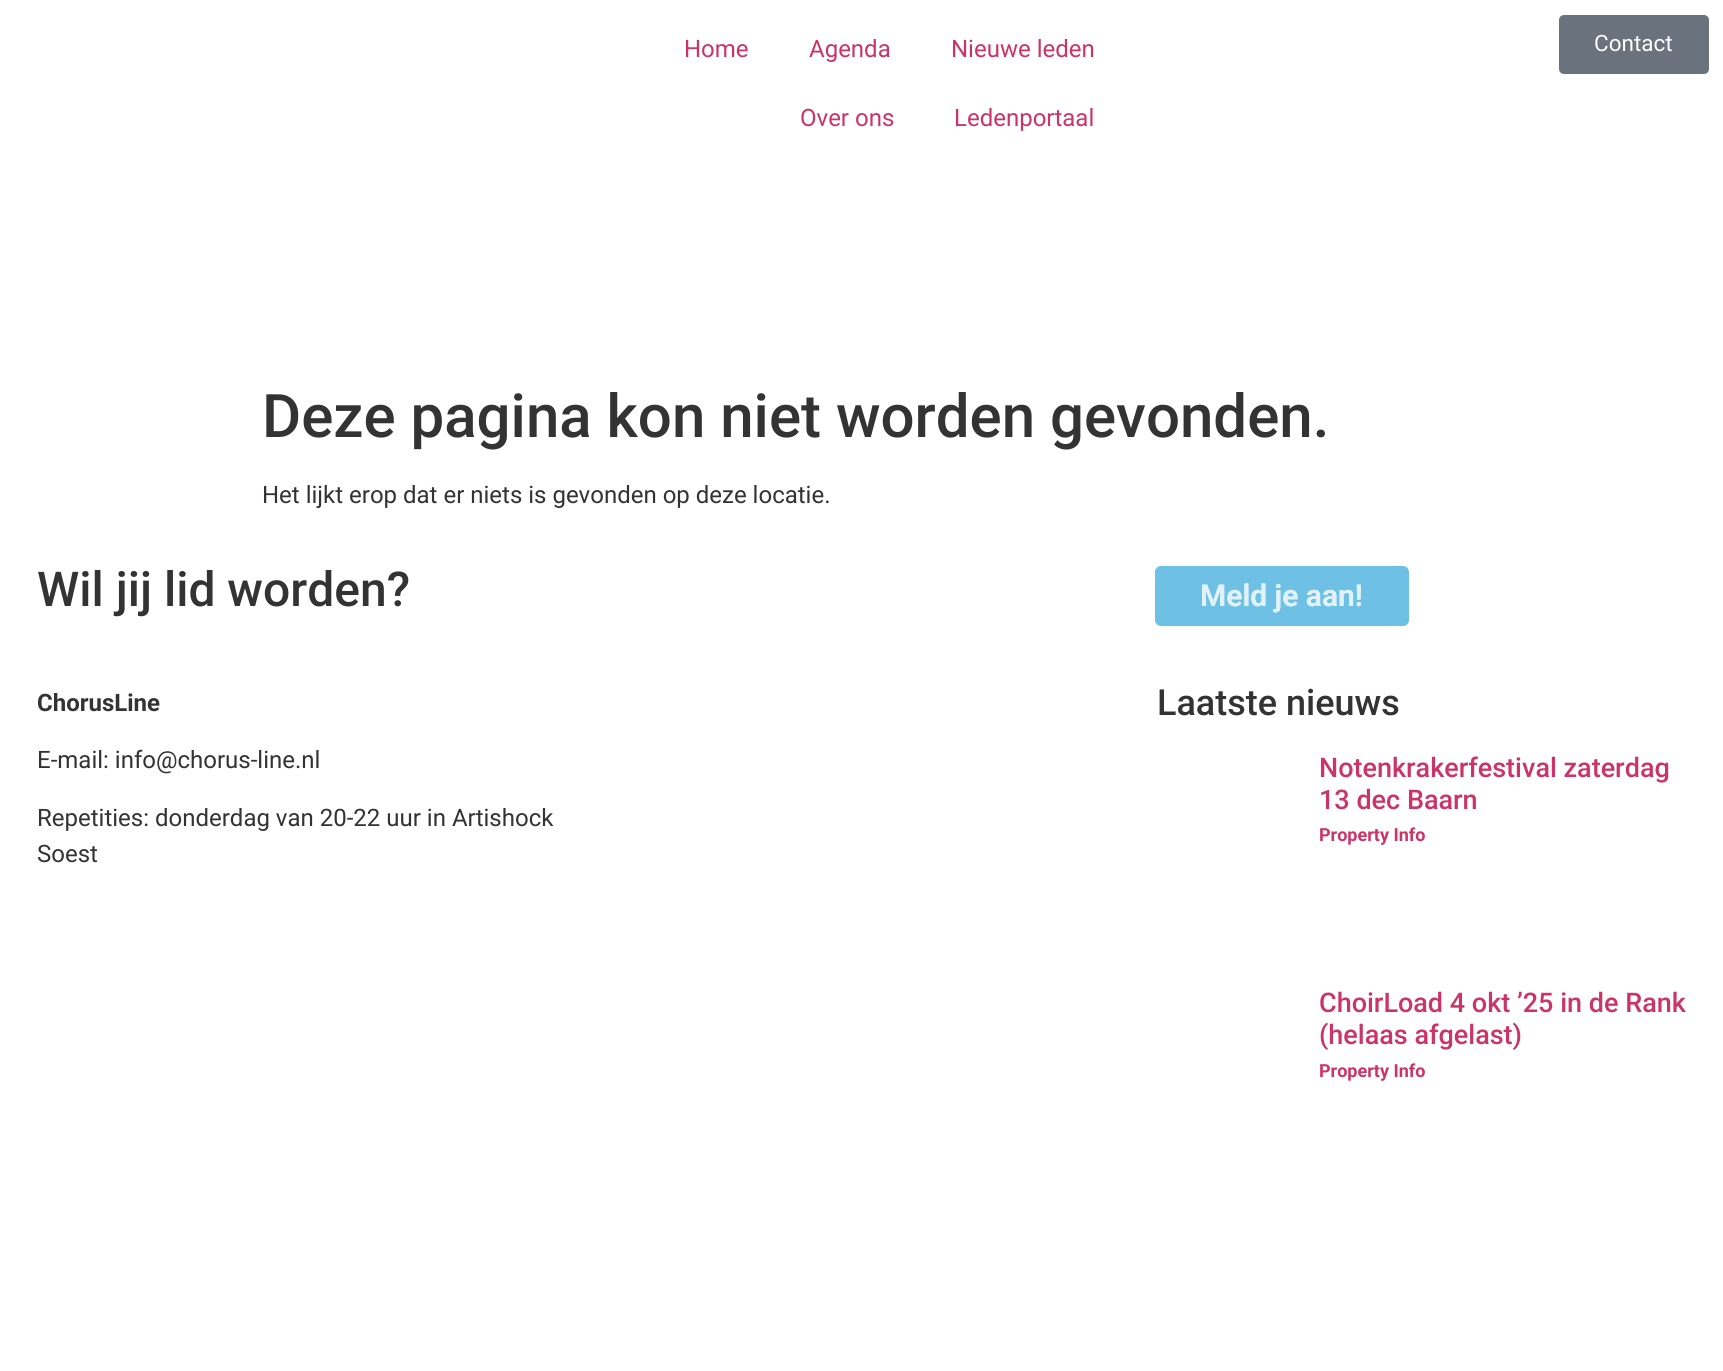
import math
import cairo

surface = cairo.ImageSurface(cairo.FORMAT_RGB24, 1723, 1371)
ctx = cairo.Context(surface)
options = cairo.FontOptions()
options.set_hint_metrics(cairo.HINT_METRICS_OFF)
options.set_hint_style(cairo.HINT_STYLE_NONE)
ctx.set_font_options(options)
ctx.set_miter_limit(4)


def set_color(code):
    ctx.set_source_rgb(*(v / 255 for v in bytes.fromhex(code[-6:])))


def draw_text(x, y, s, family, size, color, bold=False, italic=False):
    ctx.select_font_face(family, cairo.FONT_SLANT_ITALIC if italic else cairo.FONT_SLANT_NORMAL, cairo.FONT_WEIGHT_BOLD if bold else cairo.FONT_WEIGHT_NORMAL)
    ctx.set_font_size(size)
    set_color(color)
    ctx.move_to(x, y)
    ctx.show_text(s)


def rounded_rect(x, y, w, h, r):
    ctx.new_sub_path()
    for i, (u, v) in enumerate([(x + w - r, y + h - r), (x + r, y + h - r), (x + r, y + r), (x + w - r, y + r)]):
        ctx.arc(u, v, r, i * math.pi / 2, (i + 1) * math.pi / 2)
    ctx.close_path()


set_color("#ffffff")
ctx.paint()
draw_text(684, 57, "Home", "Roboto", 24, "#cc3366")
draw_text(809, 57, "Agenda", "Roboto", 24, "#cc3366")
draw_text(951, 57, "Nieuwe leden", "Roboto", 24, "#cc3366")
draw_text(800, 126, "Over ons", "Roboto", 24, "#cc3366")
draw_text(954, 126, "Ledenportaal", "Roboto", 24, "#cc3366")
set_color("#69727d")
rounded_rect(1559, 15, 150, 59, 5)
ctx.fill()
draw_text(1594, 51, "Contact", "Roboto", 22.5, "#ffffff")
draw_text(262, 437, "Deze pagina kon niet worden gevonden.", "Roboto Medium", 60, "#333333")
draw_text(262, 503, "Het lijkt erop dat er niets is gevonden op deze locatie.", "Roboto", 24, "#333333")
draw_text(37, 606, "Wil jij lid worden?", "Roboto Medium", 48, "#333333")
set_color("#6ec1e4")
rounded_rect(1155, 566, 254, 60, 6)
ctx.fill()
draw_text(1200, 606, "Meld je aan!", "Roboto SemiBold", 30, "#ffffff")
draw_text(1200, 606, "Meld je aan!", "Roboto SemiBold", 30, "#dff1f9")
draw_text(37, 711, "ChorusLine", "Roboto", 24, "#333333", bold=True)
draw_text(37, 768, "E-mail: info@chorus-line.nl", "Roboto", 24, "#333333")
draw_text(37, 826, "Repetities: donderdag van 20-22 uur in Artishock", "Roboto", 24, "#333333")
draw_text(37, 862, "Soest", "Roboto", 24, "#333333")
draw_text(1157, 715, "Laatste nieuws", "Roboto Medium", 36, "#333333")
draw_text(1319, 777, "Notenkrakerfestival zaterdag", "Roboto Medium", 27, "#cc3366")
draw_text(1319, 809, "13 dec Baarn", "Roboto Medium", 27, "#cc3366")
draw_text(1319, 841, "Property Info", "Roboto", 18, "#cc3366", bold=True)
draw_text(1319, 1012, "ChoirLoad 4 okt ’25 in de Rank", "Roboto Medium", 27, "#cc3366")
draw_text(1319, 1044, "(helaas afgelast)", "Roboto Medium", 27, "#cc3366")
draw_text(1319, 1077, "Property Info", "Roboto", 18, "#cc3366", bold=True)
surface.write_to_png("output.png")
